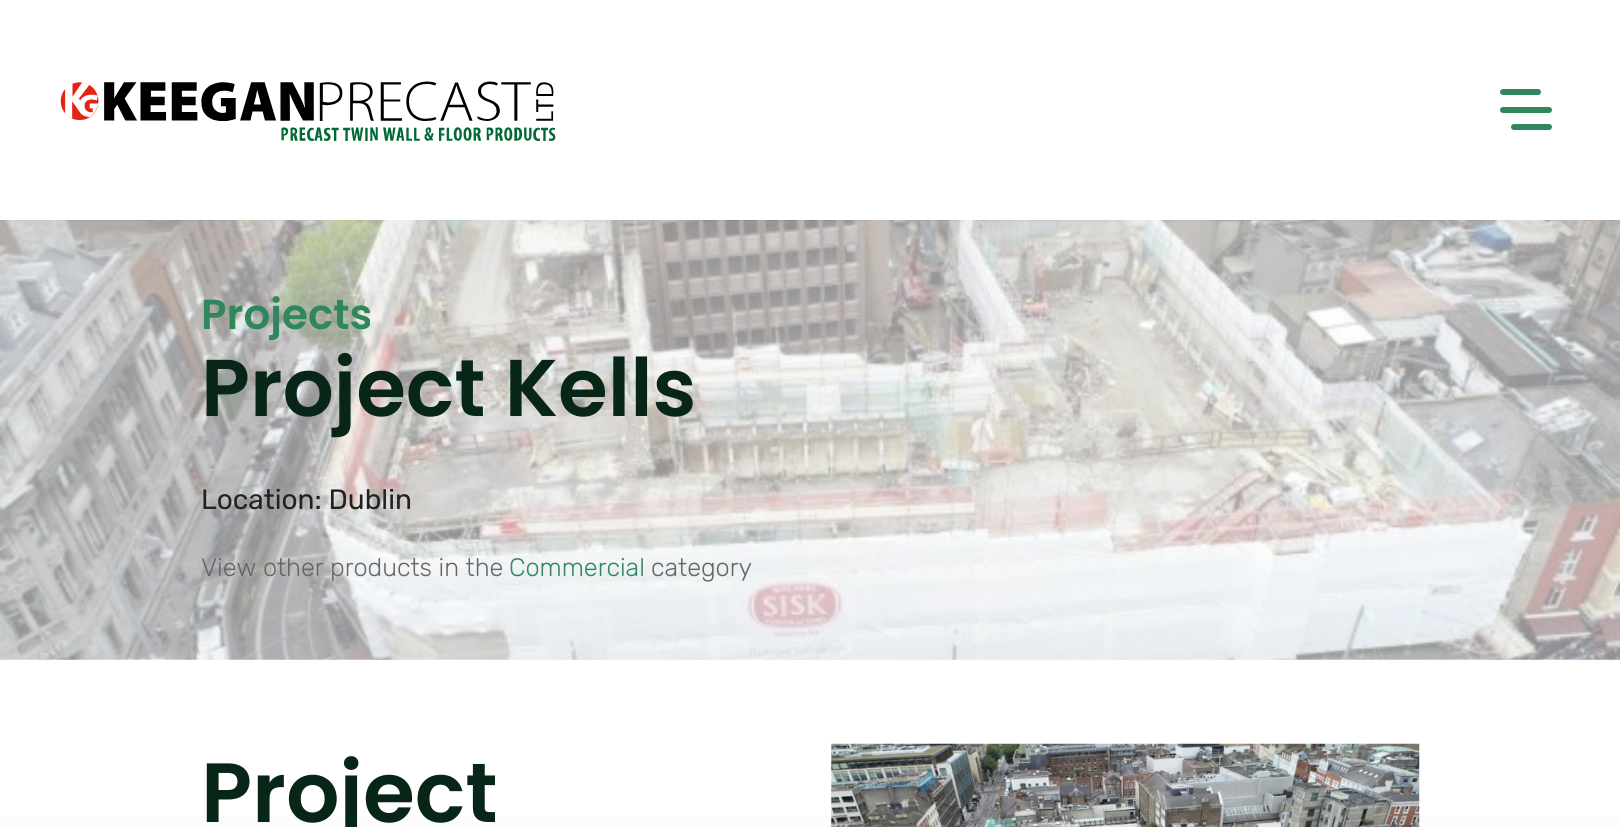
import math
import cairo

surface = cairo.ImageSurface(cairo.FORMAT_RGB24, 1620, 827)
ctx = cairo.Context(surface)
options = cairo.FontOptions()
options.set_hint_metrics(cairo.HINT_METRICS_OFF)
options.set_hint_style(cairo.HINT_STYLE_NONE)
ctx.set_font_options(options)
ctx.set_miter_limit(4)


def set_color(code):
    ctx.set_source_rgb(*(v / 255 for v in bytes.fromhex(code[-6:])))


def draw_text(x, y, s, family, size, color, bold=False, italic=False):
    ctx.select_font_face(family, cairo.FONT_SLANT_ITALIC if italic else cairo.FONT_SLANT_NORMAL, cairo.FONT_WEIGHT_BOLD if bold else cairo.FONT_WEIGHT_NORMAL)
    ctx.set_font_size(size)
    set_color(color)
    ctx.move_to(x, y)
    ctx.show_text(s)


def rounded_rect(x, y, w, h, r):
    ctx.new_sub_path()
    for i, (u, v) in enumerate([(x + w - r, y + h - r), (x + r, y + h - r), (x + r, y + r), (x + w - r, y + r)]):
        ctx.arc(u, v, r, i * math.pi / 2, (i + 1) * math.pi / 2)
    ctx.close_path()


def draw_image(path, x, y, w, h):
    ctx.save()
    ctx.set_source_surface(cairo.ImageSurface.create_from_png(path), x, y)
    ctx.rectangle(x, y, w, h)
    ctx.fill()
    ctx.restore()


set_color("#ffffff")
ctx.paint()
draw_image("assets/img1.png", 60, 81, 496, 60)
set_color("#2f875b")
rounded_rect(1500, 89, 41, 6, 3)
ctx.fill()
rounded_rect(1500, 107, 52, 6, 3)
ctx.fill()
rounded_rect(1511, 124, 41, 6, 3)
ctx.fill()
draw_image("assets/img2.png", 0, 220, 1620, 440)
draw_text(201, 329, "Projects", "Poppins SemiBold", 42, "#2f875b")
draw_text(201, 416, "Project Kells", "Poppins SemiBold", 80.5, "#082617")
draw_text(201, 509, "Location: Dublin", "Rubik", 28, "#222222")
draw_text(201, 576, "View other products in the", "Rubik Light", 25.25, "#666666")
draw_text(509, 576, "Commercial", "Rubik Light", 25.25, "#2f875b")
draw_text(651, 576, "category", "Rubik Light", 25.25, "#666666")
gradient = cairo.LinearGradient(810, 660, 810, 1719)
gradient.add_color_stop_rgba(0, 1, 1, 1, 1)
gradient.add_color_stop_rgba(1, 0.933, 0.933, 0.933, 1)
ctx.set_source(gradient)
ctx.rectangle(0, 816, 1620, 11)
ctx.fill()
draw_text(201, 822, "Project", "Poppins SemiBold", 84, "#082617")
draw_image("assets/img3.png", 831, 743, 589, 84)
surface.write_to_png("output.png")
